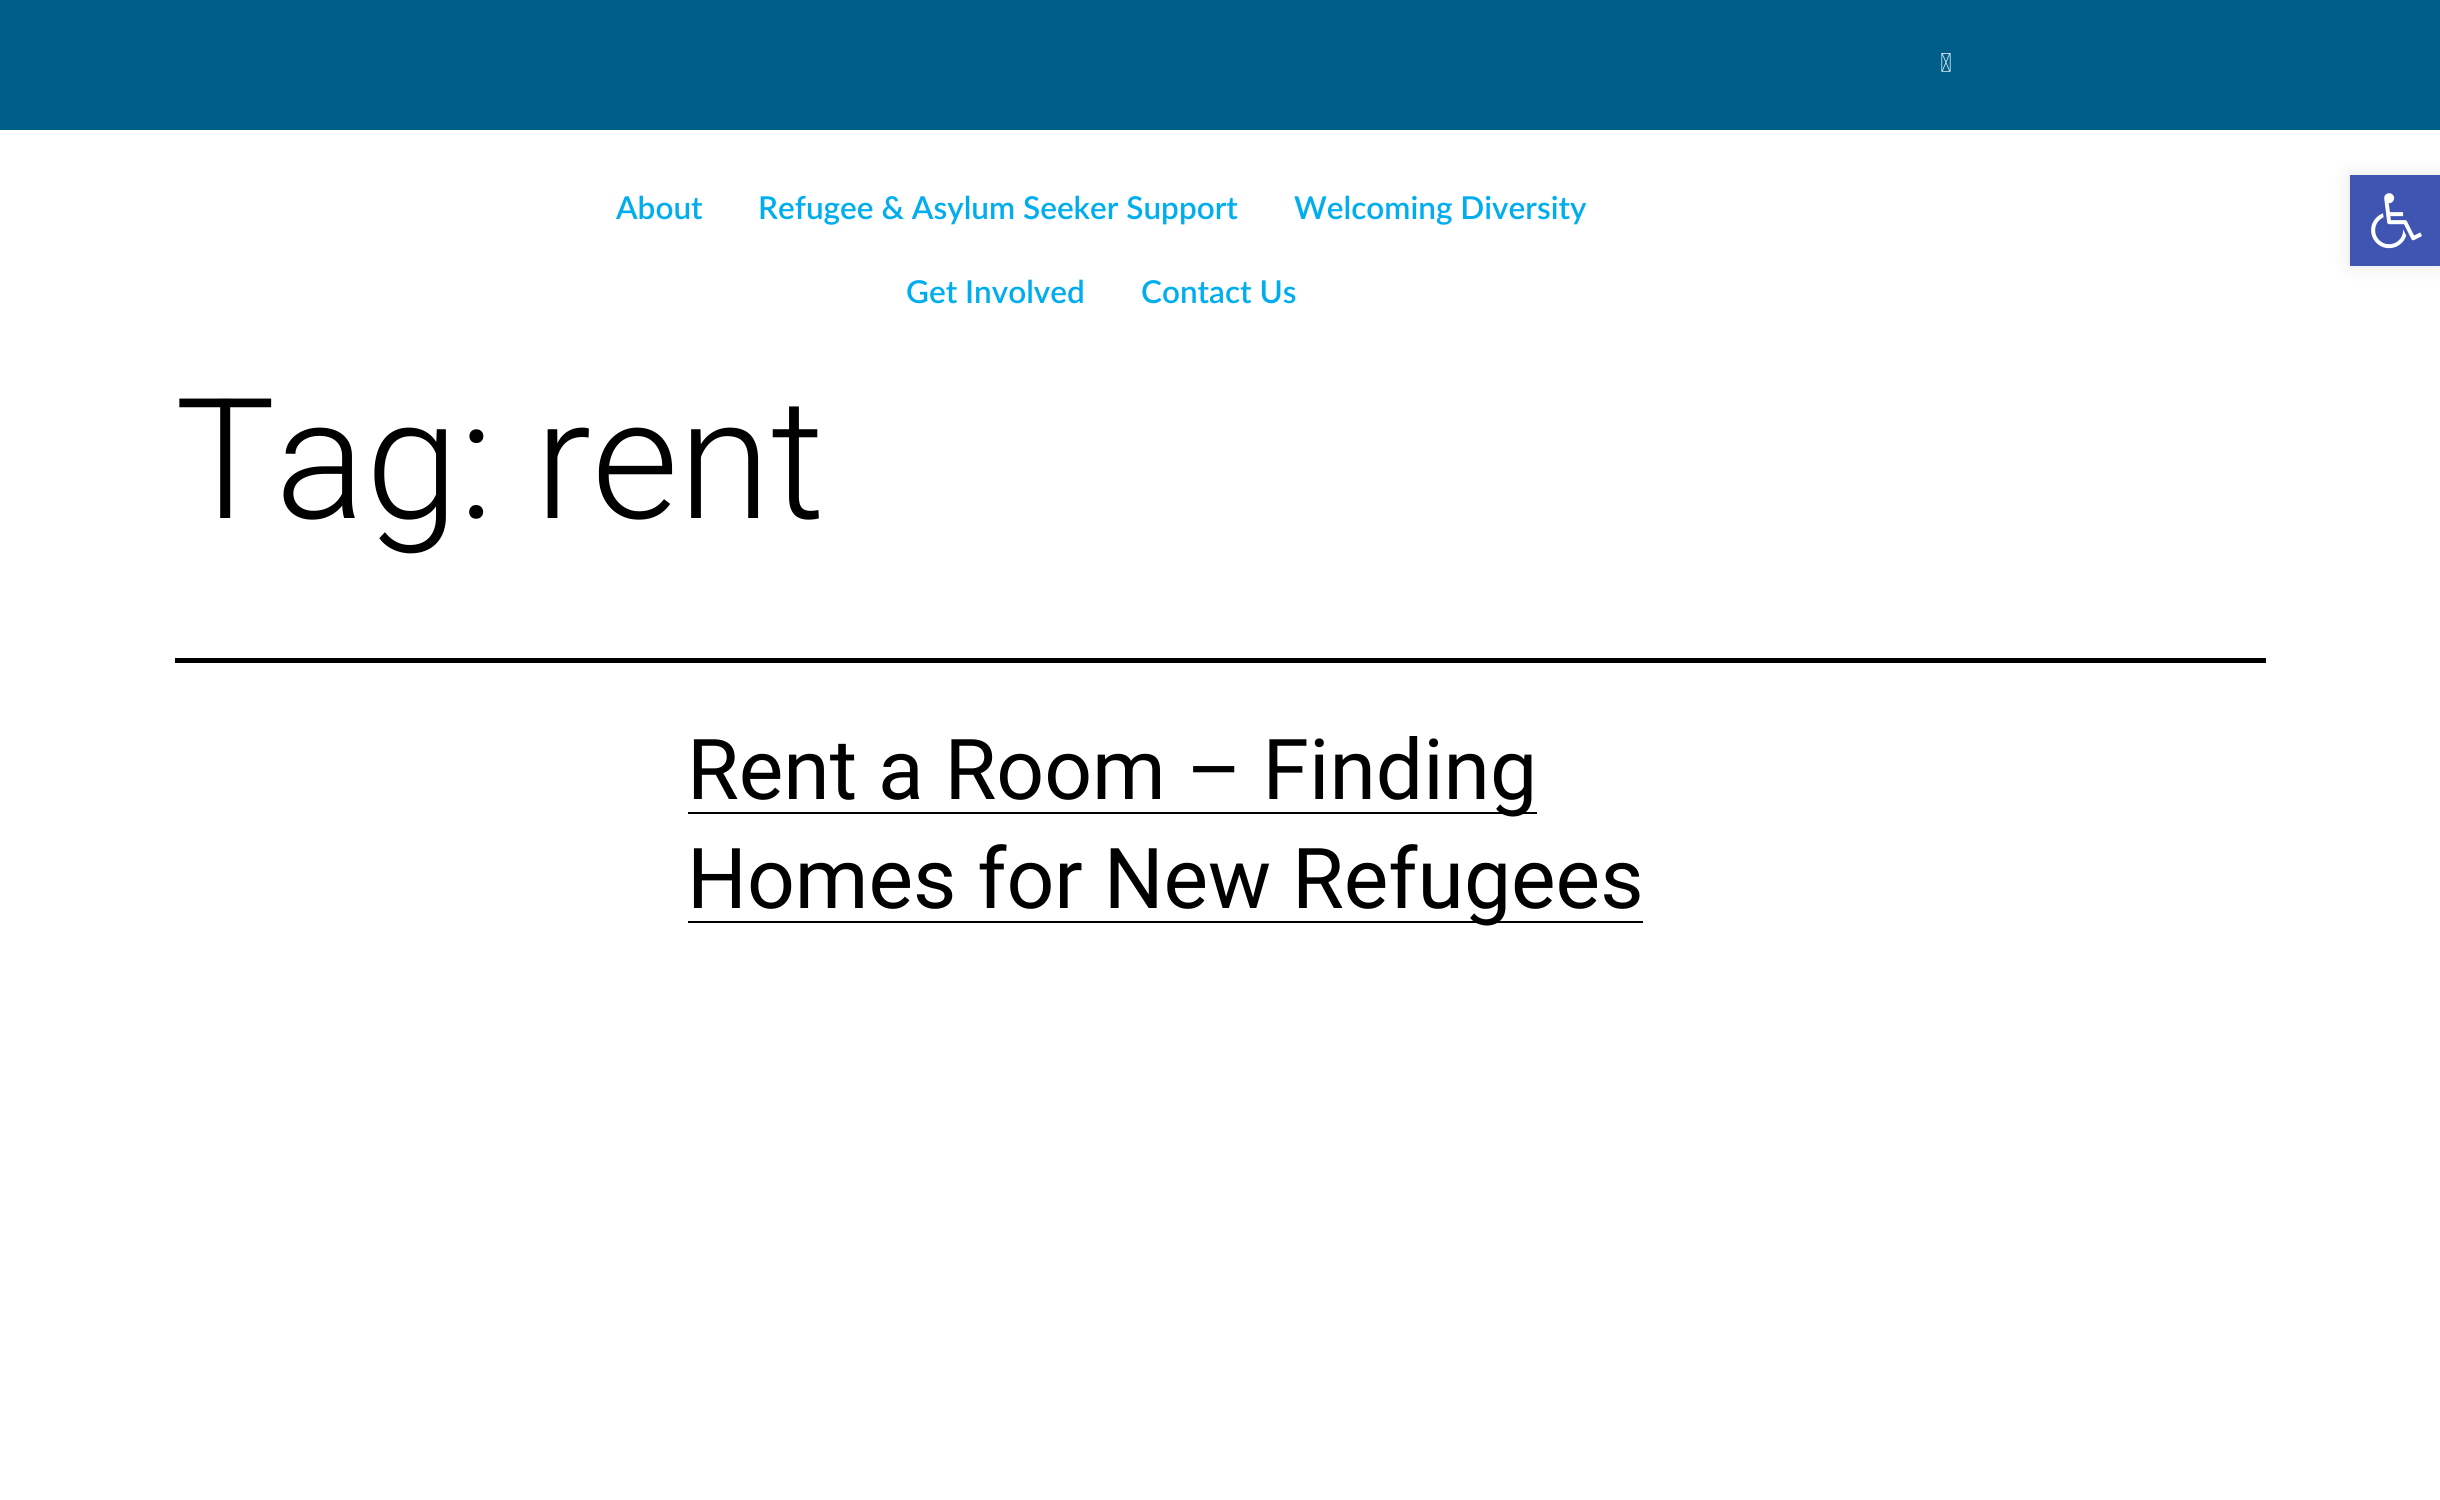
import math
import cairo

surface = cairo.ImageSurface(cairo.FORMAT_RGB24, 2440, 1500)
ctx = cairo.Context(surface)
options = cairo.FontOptions()
options.set_hint_metrics(cairo.HINT_METRICS_OFF)
options.set_hint_style(cairo.HINT_STYLE_NONE)
ctx.set_font_options(options)
ctx.set_miter_limit(4)


def set_color(code):
    ctx.set_source_rgb(*(v / 255 for v in bytes.fromhex(code[-6:])))


def draw_text(x, y, s, family, size, color, bold=False, italic=False):
    ctx.select_font_face(family, cairo.FONT_SLANT_ITALIC if italic else cairo.FONT_SLANT_NORMAL, cairo.FONT_WEIGHT_BOLD if bold else cairo.FONT_WEIGHT_NORMAL)
    ctx.set_font_size(size)
    set_color(color)
    ctx.move_to(x, y)
    ctx.show_text(s)


def fill_rect(x, y, w, h, color):
    set_color(color)
    ctx.rectangle(x, y, w, h)
    ctx.fill()


def rounded_rect(x, y, w, h, r):
    ctx.new_sub_path()
    for i, (u, v) in enumerate([(x + w - r, y + h - r), (x + r, y + h - r), (x + r, y + r), (x + w - r, y + r)]):
        ctx.arc(u, v, r, i * math.pi / 2, (i + 1) * math.pi / 2)
    ctx.close_path()


def draw_shadow(x, y, w, h, r, blur, alpha):
    ctx.push_group_with_content(cairo.CONTENT_ALPHA)
    ctx.set_operator(cairo.OPERATOR_SOURCE)
    for i in range(15, -16, -2):
        e = blur * i / 6
        if min(w, h) + 2 * e > 0:
            ctx.set_source_rgba(0, 0, 0, alpha * math.erfc((i - 1) / 8.5) / 2)
            rounded_rect(x - e, y - e, w + 2 * e, h + 2 * e, max(0, min(r + e + blur * .6, min(w, h) / 2 + e)))
            ctx.fill()
    ctx.mask(ctx.pop_group())


def draw_image(path, x, y, w, h):
    ctx.save()
    ctx.set_source_surface(cairo.ImageSurface.create_from_png(path), x, y)
    ctx.rectangle(x, y, w, h)
    ctx.fill()
    ctx.restore()


set_color("#ffffff")
ctx.paint()
fill_rect(0, 0, 2440, 130, "#005e8a")
draw_image("assets/img1.png", 1941, 53, 10, 19)
draw_text(616, 219, "About", "Lato SemiBold", 31.5, "#00adef")
draw_text(758, 219, "Refugee & Asylum Seeker Support", "Lato SemiBold", 31.5, "#00adef")
draw_text(1294, 219, "Welcoming Diversity", "Lato SemiBold", 31.5, "#00adef")
draw_text(906, 303, "Get Involved", "Lato SemiBold", 31.5, "#00adef")
draw_text(1141, 303, "Contact Us", "Lato SemiBold", 31.5, "#00adef")
fill_rect(175, 658, 2091, 5, "#000000")
draw_text(175, 518, "Tag: rent", "Roboto Light", 168, "#000000")
fill_rect(688, 812, 849, 2, "#000000")
draw_text(687, 799, "Rent a Room – Finding", "Roboto", 84, "#000000")
fill_rect(688, 921, 955, 2, "#000000")
draw_text(687, 908, "Homes for New Refugees", "Roboto", 84, "#000000")
set_color("#000000")
draw_shadow(2350, 175, 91, 91, 0, 9, 0.1)
fill_rect(2350, 175, 90, 91, "#4054b2")
draw_image("assets/img2.png", 2371, 193, 51, 56)
surface.write_to_png("output.png")
